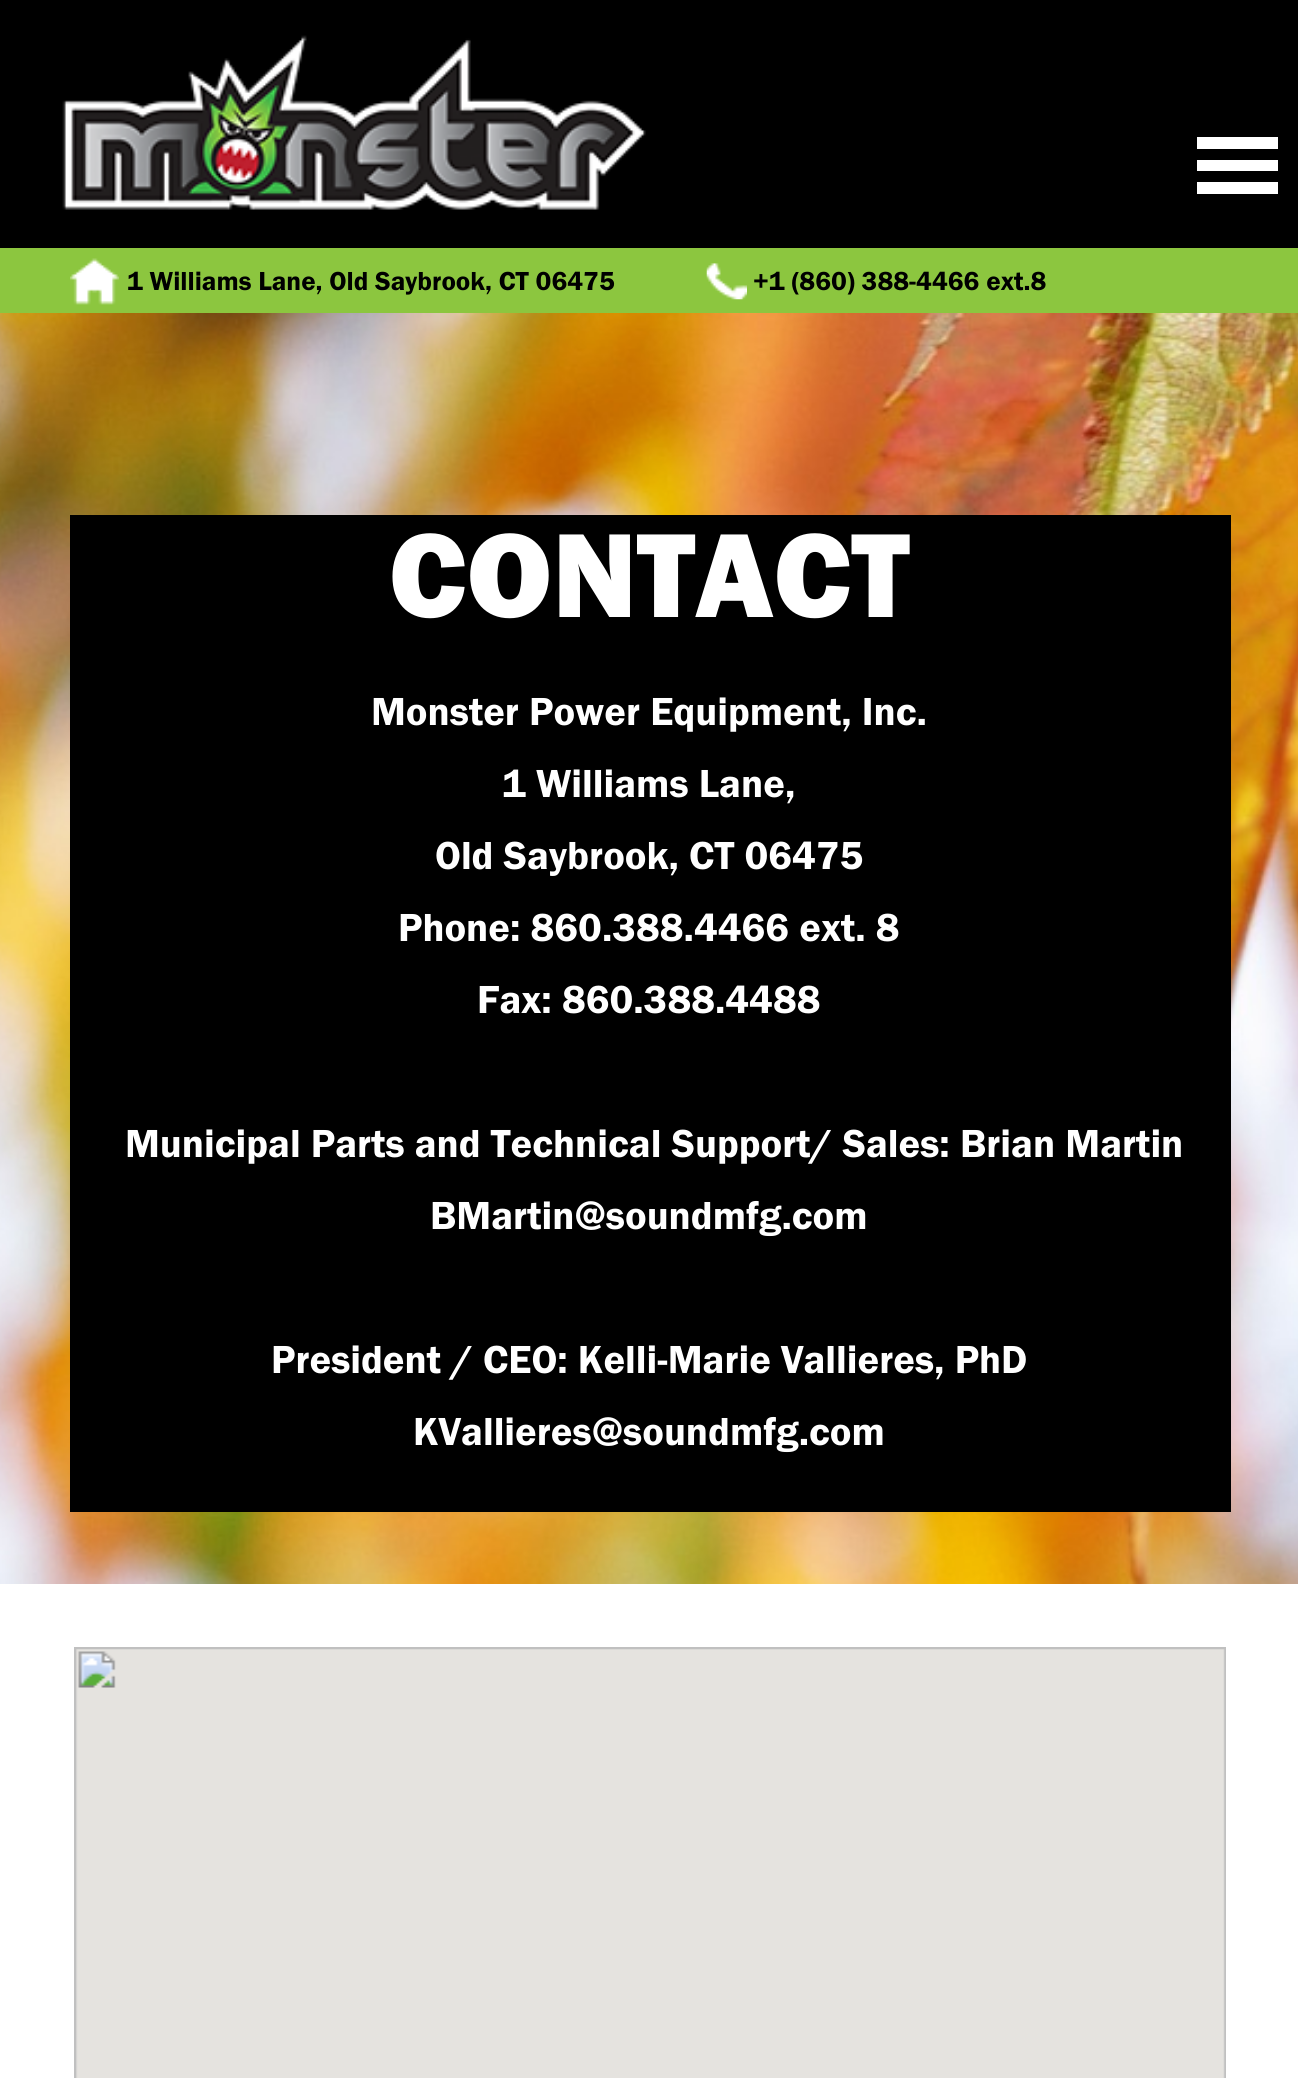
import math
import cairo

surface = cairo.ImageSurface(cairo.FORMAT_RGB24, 1298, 2078)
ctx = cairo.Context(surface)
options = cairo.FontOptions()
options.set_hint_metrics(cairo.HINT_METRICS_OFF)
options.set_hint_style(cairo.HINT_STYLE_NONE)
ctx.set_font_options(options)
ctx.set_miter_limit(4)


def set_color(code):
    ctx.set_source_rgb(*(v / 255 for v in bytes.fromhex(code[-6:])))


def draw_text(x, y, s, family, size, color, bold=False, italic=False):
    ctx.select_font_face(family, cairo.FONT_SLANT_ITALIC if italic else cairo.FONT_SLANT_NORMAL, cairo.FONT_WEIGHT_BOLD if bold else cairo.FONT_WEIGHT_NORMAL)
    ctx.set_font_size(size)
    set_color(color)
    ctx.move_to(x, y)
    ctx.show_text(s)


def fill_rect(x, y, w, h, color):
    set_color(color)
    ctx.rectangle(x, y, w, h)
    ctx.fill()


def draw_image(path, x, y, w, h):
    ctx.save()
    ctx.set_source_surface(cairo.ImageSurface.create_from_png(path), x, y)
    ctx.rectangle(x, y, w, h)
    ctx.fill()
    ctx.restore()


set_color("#ffffff")
ctx.paint()
fill_rect(0, 0, 1298, 248, "#000000")
fill_rect(1197, 137, 81, 12, "#ffffff")
fill_rect(1197, 160, 81, 11, "#ffffff")
fill_rect(1197, 182, 81, 12, "#ffffff")
draw_image("assets/img1.png", 62, 35, 584, 175)
fill_rect(0, 248, 1298, 65, "#8cc63f")
draw_image("assets/img2.png", 70, 258, 49, 47)
draw_text(127, 290, "1 Williams Lane, Old Saybrook, CT 06475", "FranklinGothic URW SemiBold", 27, "#000000")
draw_image("assets/img3.png", 706, 263, 41, 37)
draw_text(753, 290, "+1 (860) 388-4466 ext.8", "FranklinGothic URW SemiBold", 27, "#000000")
draw_image("assets/img4.png", 0, 313, 1298, 1271)
fill_rect(70, 515, 1161, 997, "#000000")
draw_text(389, 617, "CONTACT", "FranklinGothic URW Black", 123.75, "#ffffff")
draw_text(371, 725, "Monster Power Equipment, Inc.", "FranklinGothic URW SemiBold", 40.5, "#ffffff")
draw_text(502, 797, "1 Williams Lane,", "FranklinGothic URW SemiBold", 40.5, "#ffffff")
draw_text(435, 869, "Old Saybrook, CT 06475", "FranklinGothic URW SemiBold", 40.5, "#ffffff")
draw_text(398, 941, "Phone: 860.388.4466 ext. 8", "FranklinGothic URW SemiBold", 40.5, "#ffffff")
draw_text(477, 1013, "Fax: 860.388.4488", "FranklinGothic URW SemiBold", 40.5, "#ffffff")
draw_text(125, 1157, "Municipal Parts and Technical Support/ Sales: Brian Martin", "FranklinGothic URW SemiBold", 40.5, "#ffffff")
draw_text(430, 1229, "BMartin@soundmfg.com", "FranklinGothic URW SemiBold", 40.5, "#ffffff")
draw_text(271, 1373, "President / CEO: Kelli-Marie Vallieres, PhD", "FranklinGothic URW SemiBold", 40.5, "#ffffff")
draw_text(413, 1445, "KVallieres@soundmfg.com", "FranklinGothic URW SemiBold", 40.5, "#ffffff")
draw_image("assets/img5.png", 74, 1647, 1152, 431)
surface.write_to_png("output.png")
